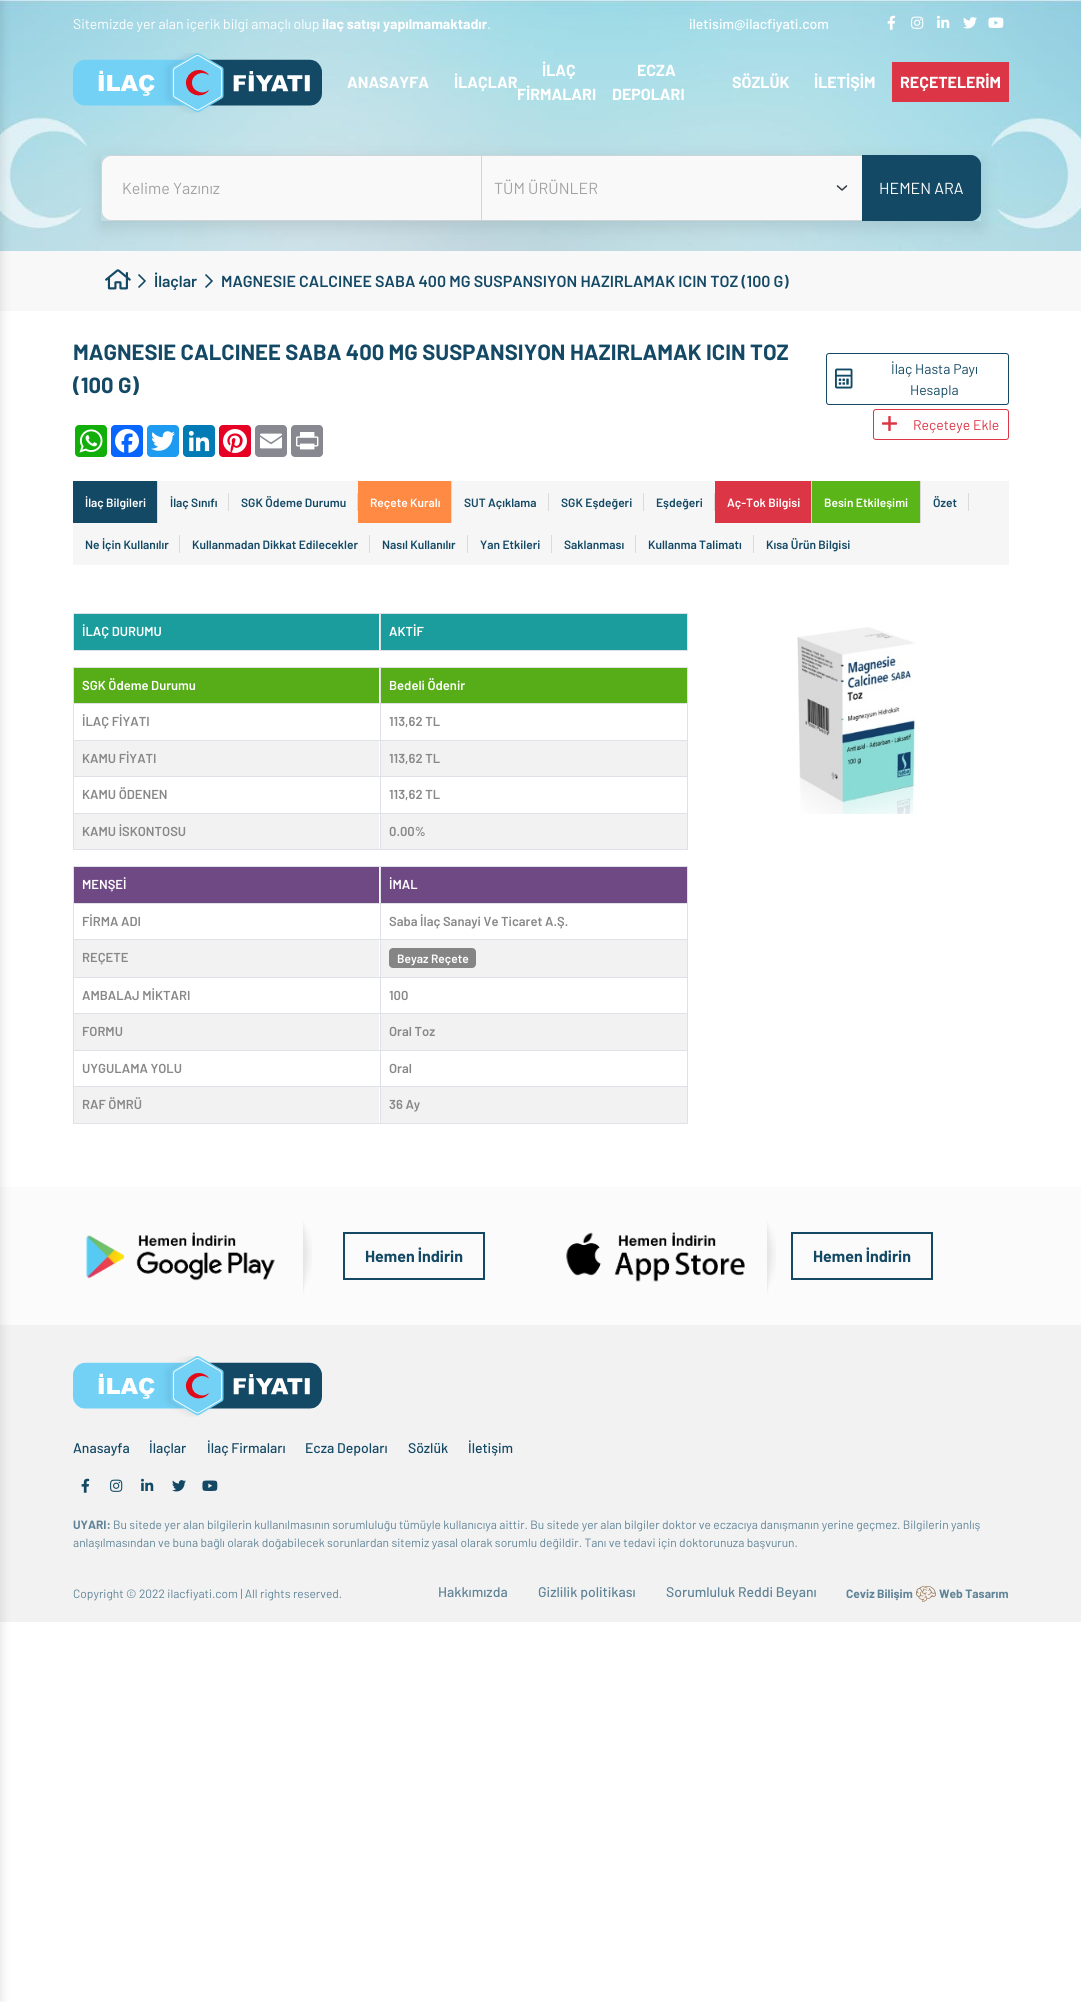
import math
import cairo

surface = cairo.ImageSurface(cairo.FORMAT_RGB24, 1081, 2002)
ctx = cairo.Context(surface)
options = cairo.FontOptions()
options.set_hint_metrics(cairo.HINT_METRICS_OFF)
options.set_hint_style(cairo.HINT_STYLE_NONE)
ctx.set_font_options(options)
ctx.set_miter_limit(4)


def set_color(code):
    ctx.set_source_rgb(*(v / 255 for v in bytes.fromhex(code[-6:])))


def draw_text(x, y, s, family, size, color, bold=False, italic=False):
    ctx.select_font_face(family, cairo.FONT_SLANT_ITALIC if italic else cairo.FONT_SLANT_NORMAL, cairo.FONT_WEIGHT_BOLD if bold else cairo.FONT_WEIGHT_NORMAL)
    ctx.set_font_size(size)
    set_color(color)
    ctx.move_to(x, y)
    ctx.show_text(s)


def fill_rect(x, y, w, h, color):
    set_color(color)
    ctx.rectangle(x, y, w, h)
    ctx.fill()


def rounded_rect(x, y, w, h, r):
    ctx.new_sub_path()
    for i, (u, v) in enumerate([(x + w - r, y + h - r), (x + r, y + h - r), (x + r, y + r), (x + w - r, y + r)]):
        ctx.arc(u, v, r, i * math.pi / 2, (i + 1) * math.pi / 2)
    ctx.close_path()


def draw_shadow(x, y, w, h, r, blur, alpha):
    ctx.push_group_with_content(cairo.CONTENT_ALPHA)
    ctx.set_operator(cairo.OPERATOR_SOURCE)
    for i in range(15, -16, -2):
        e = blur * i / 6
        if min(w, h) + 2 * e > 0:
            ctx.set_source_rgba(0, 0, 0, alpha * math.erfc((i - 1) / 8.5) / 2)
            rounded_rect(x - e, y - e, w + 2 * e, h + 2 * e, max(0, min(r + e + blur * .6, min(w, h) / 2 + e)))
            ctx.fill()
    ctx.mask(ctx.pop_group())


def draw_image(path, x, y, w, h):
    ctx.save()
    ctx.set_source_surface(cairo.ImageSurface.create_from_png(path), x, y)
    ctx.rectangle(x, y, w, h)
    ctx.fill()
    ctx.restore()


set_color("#ffffff")
ctx.paint()
draw_image("assets/img7.png", 0, 0, 1081, 251)
fill_rect(0, 251, 1081, 60, "#f8f8f8")
fill_rect(0, 1187, 1081, 138, "#fbfbfb")
fill_rect(0, 1325, 1081, 297, "#f2f2f2")
set_color("#000000")
draw_shadow(-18, 0, 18, 2002, 0, 6, 0.14)
draw_text(73, 29, "Sitemizde yer alan içerik bilgi amaçlı olup", "Barlow", 14, "#ffffff")
draw_text(322, 29, "ilaç satışı yapılmamaktadır", "Barlow", 14, "#ffffff", bold=True)
draw_text(487, 29, ".", "Barlow", 14, "#ffffff")
draw_text(689, 29, "iletisim@ilacfiyati.com", "Barlow Medium", 14, "#ffffff")
draw_image("assets/img1.png", 887, 15, 9, 15)
draw_image("assets/img2.png", 911, 16, 13, 13)
draw_image("assets/img3.png", 937, 15, 13, 13)
draw_image("assets/img4.png", 963, 17, 14, 12)
draw_image("assets/img5.png", 988, 17, 16, 11)
draw_image("assets/img6.png", 73, 53, 249, 61)
draw_text(347, 88, "ANASAYFA", "Barlow", 16, "#ffffff", bold=True)
draw_text(454, 88, "İLAÇLAR", "Barlow", 16, "#ffffff", bold=True)
draw_text(542, 76, "İLAÇ", "Barlow", 16, "#ffffff", bold=True)
draw_text(517, 100, "FİRMALARI", "Barlow", 16, "#ffffff", bold=True)
draw_text(637, 76, "ECZA", "Barlow", 16, "#ffffff", bold=True)
draw_text(612, 100, "DEPOLARI", "Barlow", 16, "#ffffff", bold=True)
draw_text(732, 88, "SÖZLÜK", "Barlow", 16, "#ffffff", bold=True)
draw_text(814, 88, "İLETİŞİM", "Barlow", 16, "#ffffff", bold=True)
fill_rect(892, 62, 117, 40, "#dc3545")
draw_text(900, 88, "REÇETELERİM", "Barlow", 16, "#ffffff", bold=True)
ctx.save()
ctx.set_fill_rule(cairo.FILL_RULE_EVEN_ODD)
ctx.new_path()
ctx.move_to(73, 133)
ctx.line_to(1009, 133)
ctx.line_to(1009, 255)
ctx.line_to(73, 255)
ctx.close_path()
ctx.move_to(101, 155)
ctx.line_to(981, 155)
ctx.line_to(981, 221)
ctx.line_to(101, 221)
ctx.close_path()
ctx.clip()
set_color("#000000")
draw_shadow(101, 161, 880, 66, 0, 9, 0.11)
ctx.restore()
set_color("#f9f9f9")
ctx.new_path()
ctx.move_to(111, 155.5)
ctx.line_to(481.5, 155.5)
ctx.line_to(481.5, 220.5)
ctx.line_to(111, 220.5)
ctx.curve_to(106, 220.5, 101.5, 216, 101.5, 211)
ctx.line_to(101.5, 165)
ctx.curve_to(101.5, 160, 106, 155.5, 111, 155.5)
ctx.close_path()
ctx.fill_preserve()
set_color("#ced4da")
ctx.set_line_width(1)
ctx.stroke()
draw_text(122, 194, "Kelime Yazınız", "Barlow", 16, "#a2a2a2")
fill_rect(482, 156, 380, 64, "#f9f9f9")
ctx.new_path()
ctx.move_to(837.5, 186)
ctx.line_to(842, 190)
ctx.line_to(846.5, 186)
set_color("#343a40")
ctx.set_line_width(1.5)
ctx.set_line_cap(cairo.LINE_CAP_ROUND)
ctx.set_line_join(cairo.LINE_JOIN_ROUND)
ctx.stroke()
ctx.rectangle(481.5, 155.5, 381, 65)
set_color("#ced4da")
ctx.set_line_width(1)
ctx.set_line_cap(cairo.LINE_CAP_BUTT)
ctx.set_line_join(cairo.LINE_JOIN_MITER)
ctx.stroke()
draw_text(494, 194, "TÜM ÜRÜNLER", "Barlow", 16, "#a2a2a2")
set_color("#144965")
ctx.new_path()
ctx.move_to(862.5, 155.5)
ctx.line_to(971, 155.5)
ctx.curve_to(976, 155.5, 980.5, 160, 980.5, 165)
ctx.line_to(980.5, 211)
ctx.curve_to(980.5, 216, 976, 220.5, 971, 220.5)
ctx.line_to(862.5, 220.5)
ctx.close_path()
ctx.fill_preserve()
ctx.stroke()
draw_text(879, 194, "HEMEN ARA", "Barlow", 16, "#ffffff")
draw_image("assets/img8.png", 105, 269, 26, 21)
draw_image("assets/img9.png", 138, 274, 8, 14)
draw_text(154, 287, "İlaçlar", "Barlow SemiBold", 16, "#144965")
draw_image("assets/img9.png", 205, 274, 8, 14)
draw_text(221, 287, "MAGNESIE CALCINEE SABA 400 MG SUSPANSIYON HAZIRLAMAK ICIN TOZ (100 G)", "Barlow SemiBold", 16, "#144965")
draw_text(73, 360, "MAGNESIE CALCINEE SABA 400 MG SUSPANSIYON HAZIRLAMAK ICIN TOZ", "Barlow", 22, "#144965", bold=True)
draw_text(73, 393, "(100 G)", "Barlow", 22, "#144965", bold=True)
set_color("#12af0a")
rounded_rect(75, 425, 32, 32, 4)
ctx.fill()
draw_image("assets/img10.png", 79, 429, 24, 24)
set_color("#0866ff")
rounded_rect(111, 425, 32, 32, 4)
ctx.fill()
draw_image("assets/img11.png", 115, 429, 24, 24)
set_color("#1d9bf0")
rounded_rect(147, 425, 32, 32, 4)
ctx.fill()
draw_image("assets/img12.png", 151, 431, 24, 20)
set_color("#007bb5")
rounded_rect(183, 425, 32, 32, 4)
ctx.fill()
draw_image("assets/img13.png", 188, 430, 22, 22)
set_color("#e60023")
rounded_rect(219, 425, 32, 32, 4)
ctx.fill()
draw_image("assets/img14.png", 223, 429, 24, 24)
set_color("#888990")
rounded_rect(255, 425, 32, 32, 4)
ctx.fill()
draw_image("assets/img15.png", 260, 433, 22, 16)
rounded_rect(291, 425, 32, 32, 4)
ctx.fill()
draw_image("assets/img16.png", 296, 432, 23, 18)
rounded_rect(826.5, 353.5, 182, 51, 2.5)
set_color("#144965")
ctx.stroke()
draw_image("assets/img17.png", 835, 368, 18, 21)
draw_text(891, 374, "İlaç Hasta Payı", "Barlow", 14, "#144965")
draw_text(910, 395, "Hesapla", "Barlow", 14, "#144965")
rounded_rect(873.5, 409.5, 135, 30, 2.5)
set_color("#dc3545")
ctx.stroke()
draw_image("assets/img18.png", 882, 416, 15, 15)
draw_text(913, 430, "Reçeteye Ekle", "Barlow", 14, "#dc3545")
fill_rect(73, 481, 936, 84, "#f6f6f6")
fill_rect(73, 481, 84, 42, "#144965")
draw_text(85, 507, "İlaç Bilgileri", "Barlow SemiBold", 12, "#ffffff")
fill_rect(157, 481, 1, 42, "#dbdbdb")
draw_text(170, 507, "İlaç Sınıfı", "Barlow SemiBold", 12, "#144965")
fill_rect(228, 493, 1, 18, "#dbdbdb")
draw_text(241, 507, "SGK Ödeme Durumu", "Barlow SemiBold", 12, "#144965")
fill_rect(357, 493, 1, 18, "#dbdbdb")
fill_rect(358, 481, 93, 42, "#ff8a44")
draw_text(370, 507, "Reçete Kuralı", "Barlow SemiBold", 12, "#ffffff")
fill_rect(451, 481, 1, 42, "#dbdbdb")
draw_text(464, 507, "SUT Açıklama", "Barlow SemiBold", 12, "#144965")
fill_rect(548, 493, 1, 18, "#dbdbdb")
draw_text(561, 507, "SGK Eşdeğeri", "Barlow SemiBold", 12, "#144965")
fill_rect(643, 493, 1, 18, "#dbdbdb")
draw_text(656, 507, "Eşdeğeri", "Barlow SemiBold", 12, "#144965")
fill_rect(714, 493, 1, 18, "#dbdbdb")
fill_rect(715, 481, 96, 42, "#dc3545")
draw_text(727, 507, "Aç-Tok Bilgisi", "Barlow SemiBold", 12, "#ffffff")
fill_rect(811, 481, 1, 42, "#dbdbdb")
fill_rect(812, 481, 108, 42, "#5ab618")
draw_text(824, 507, "Besin Etkileşimi", "Barlow SemiBold", 12, "#ffffff")
fill_rect(920, 481, 1, 42, "#dbdbdb")
draw_text(933, 507, "Özet", "Barlow SemiBold", 12, "#144965")
fill_rect(968, 493, 1, 18, "#dbdbdb")
draw_text(85, 549, "Ne İçin Kullanılır", "Barlow SemiBold", 12, "#144965")
fill_rect(179, 535, 1, 18, "#dbdbdb")
draw_text(192, 549, "Kullanmadan Dikkat Edilecekler", "Barlow SemiBold", 12, "#144965")
fill_rect(369, 535, 1, 18, "#dbdbdb")
draw_text(382, 549, "Nasıl Kullanılır", "Barlow SemiBold", 12, "#144965")
fill_rect(467, 535, 1, 18, "#dbdbdb")
draw_text(480, 549, "Yan Etkileri", "Barlow SemiBold", 12, "#144965")
fill_rect(551, 535, 1, 18, "#dbdbdb")
draw_text(564, 549, "Saklanması", "Barlow SemiBold", 12, "#144965")
fill_rect(635, 535, 1, 18, "#dbdbdb")
draw_text(648, 549, "Kullanma Talimatı", "Barlow SemiBold", 12, "#144965")
fill_rect(753, 535, 1, 18, "#dbdbdb")
draw_text(766, 549, "Kısa Ürün Bilgisi", "Barlow SemiBold", 12, "#144965")
fill_rect(73, 613, 615, 1, "#dee2e6")
fill_rect(73, 650, 615, 1, "#dee2e6")
fill_rect(74, 614, 305, 36, "#1c9d9d")
fill_rect(73, 613, 1, 38, "#dee2e6")
draw_text(82, 636, "İLAÇ DURUMU", "Barlow SemiBold", 13, "#ffffff")
fill_rect(381, 614, 306, 36, "#1c9d9d")
fill_rect(687, 613, 1, 38, "#dee2e6")
fill_rect(380, 613, 1, 38, "#dee2e6")
draw_text(389, 636, "AKTİF", "Barlow SemiBold", 13, "#ffffff")
fill_rect(73, 667, 615, 1, "#dee2e6")
fill_rect(74, 668, 305, 35, "#56ad17")
draw_text(82, 690, "SGK Ödeme Durumu", "Barlow SemiBold", 13, "#ffffff")
fill_rect(381, 668, 306, 35, "#56ad17")
draw_text(389, 690, "Bedeli Ödenir", "Barlow SemiBold", 13, "#ffffff")
fill_rect(73, 703, 615, 1, "#dee2e6")
draw_text(82, 726, "İLAÇ FİYATI", "Barlow SemiBold", 13, "#888888")
draw_text(389, 726, "113,62 TL", "Barlow SemiBold", 13, "#888888")
fill_rect(73, 740, 615, 1, "#dee2e6")
fill_rect(74, 741, 305, 35, "#f2f2f2")
draw_text(82, 763, "KAMU FİYATI", "Barlow SemiBold", 13, "#888888")
fill_rect(381, 741, 306, 35, "#f2f2f2")
draw_text(389, 763, "113,62 TL", "Barlow SemiBold", 13, "#888888")
fill_rect(73, 776, 615, 1, "#dee2e6")
draw_text(82, 799, "KAMU ÖDENEN", "Barlow SemiBold", 13, "#888888")
draw_text(389, 799, "113,62 TL", "Barlow SemiBold", 13, "#888888")
fill_rect(73, 813, 615, 1, "#dee2e6")
fill_rect(73, 849, 615, 1, "#dee2e6")
fill_rect(74, 814, 305, 35, "#f2f2f2")
fill_rect(73, 667, 1, 183, "#dee2e6")
draw_text(82, 836, "KAMU İSKONTOSU", "Barlow SemiBold", 13, "#888888")
fill_rect(381, 814, 306, 35, "#f2f2f2")
fill_rect(687, 667, 1, 183, "#dee2e6")
fill_rect(380, 667, 1, 183, "#dee2e6")
draw_text(389, 836, "0.00%", "Barlow SemiBold", 13, "#888888")
fill_rect(73, 866, 615, 1, "#dee2e6")
fill_rect(74, 867, 305, 36, "#6f4983")
draw_text(82, 889, "MENŞEİ", "Barlow SemiBold", 13, "#ffffff")
fill_rect(381, 867, 306, 36, "#6f4983")
draw_text(389, 889, "İMAL", "Barlow SemiBold", 13, "#ffffff")
fill_rect(73, 903, 615, 1, "#dee2e6")
draw_text(82, 926, "FİRMA ADI", "Barlow SemiBold", 13, "#888888")
draw_text(389, 926, "Saba İlaç Sanayi Ve Ticaret A.Ş.", "Barlow SemiBold", 13, "#888888")
fill_rect(73, 939, 615, 1, "#dee2e6")
fill_rect(74, 940, 305, 37, "#f2f2f2")
draw_text(82, 962, "REÇETE", "Barlow SemiBold", 13, "#888888")
fill_rect(381, 940, 306, 37, "#f2f2f2")
set_color("#858585")
rounded_rect(389, 948, 87, 20, 4)
ctx.fill()
draw_text(397, 963, "Beyaz Reçete", "Barlow SemiBold", 12, "#ffffff")
fill_rect(73, 977, 615, 1, "#dee2e6")
draw_text(82, 1000, "AMBALAJ MİKTARI", "Barlow SemiBold", 13, "#888888")
draw_text(389, 1000, "100", "Barlow SemiBold", 13, "#888888")
fill_rect(73, 1013, 615, 1, "#dee2e6")
fill_rect(74, 1014, 305, 36, "#f2f2f2")
draw_text(82, 1036, "FORMU", "Barlow SemiBold", 13, "#888888")
fill_rect(381, 1014, 306, 36, "#f2f2f2")
draw_text(389, 1036, "Oral Toz", "Barlow SemiBold", 13, "#888888")
fill_rect(73, 1050, 615, 1, "#dee2e6")
draw_text(82, 1073, "UYGULAMA YOLU", "Barlow SemiBold", 13, "#888888")
draw_text(389, 1073, "Oral", "Barlow SemiBold", 13, "#888888")
fill_rect(73, 1086, 615, 1, "#dee2e6")
fill_rect(73, 1123, 615, 1, "#dee2e6")
fill_rect(74, 1087, 305, 36, "#f2f2f2")
fill_rect(73, 866, 1, 258, "#dee2e6")
draw_text(82, 1109, "RAF ÖMRÜ", "Barlow SemiBold", 13, "#888888")
fill_rect(381, 1087, 306, 36, "#f2f2f2")
fill_rect(687, 866, 1, 258, "#dee2e6")
fill_rect(380, 866, 1, 258, "#dee2e6")
draw_text(389, 1109, "36 Ay", "Barlow SemiBold", 13, "#888888")
draw_image("assets/img19.png", 797, 627, 121, 187)
draw_image("assets/img20.png", 86, 1232, 189, 49)
draw_image("assets/img21.png", 303, 1221, 9, 73)
ctx.rectangle(344, 1233, 140, 46)
set_color("#144965")
ctx.set_line_width(2)
ctx.stroke()
draw_text(365, 1262, "Hemen İndirin", "Barlow", 16, "#144965", bold=True)
draw_image("assets/img22.png", 566, 1232, 179, 50)
draw_image("assets/img21.png", 767, 1221, 9, 73)
ctx.rectangle(792, 1233, 140, 46)
ctx.stroke()
draw_text(813, 1262, "Hemen İndirin", "Barlow", 16, "#144965", bold=True)
draw_image("assets/img23.png", 73, 1356, 249, 61)
draw_text(73, 1453, "Anasayfa", "Barlow Medium", 14, "#144965")
draw_text(149, 1453, "İlaçlar", "Barlow Medium", 14, "#144965")
draw_text(207, 1453, "İlaç Firmaları", "Barlow Medium", 14, "#144965")
draw_text(305, 1453, "Ecza Depoları", "Barlow Medium", 14, "#144965")
draw_text(408, 1453, "Sözlük", "Barlow Medium", 14, "#144965")
draw_text(468, 1453, "İletişim", "Barlow Medium", 14, "#144965")
draw_image("assets/img24.png", 81, 1478, 9, 15)
draw_image("assets/img25.png", 110, 1479, 13, 13)
draw_image("assets/img26.png", 141, 1478, 13, 13)
draw_image("assets/img27.png", 172, 1480, 14, 12)
draw_image("assets/img28.png", 202, 1480, 16, 11)
draw_text(73, 1529, "UYARI:", "Barlow", 12, "#608497", bold=True)
draw_text(113, 1529, "Bu sitede yer alan bilgilerin kullanılmasının sorumluluğu tümüyle kullanıcıya aittir. Bu sitede yer alan bilgiler doktor ve eczacıya danışmanın yerine geçmez. Bilgilerin yanlış", "Barlow", 12, "#608497")
draw_text(73, 1547, "anlaşılmasından ve buna bağlı olarak doğabilecek sorunlardan sitemiz yasal olarak sorumlu değildir. Tanı ve tedavi için doktorunuza başvurun.", "Barlow", 12, "#608497")
draw_text(73, 1598, "Copyright © 2022 ilacfiyati.com | All rights reserved.", "Barlow", 12, "#608497")
draw_text(438, 1597, "Hakkımızda", "Barlow Medium", 14, "#608497")
draw_text(538, 1597, "Gizlilik politikası", "Barlow Medium", 14, "#608497")
draw_text(666, 1597, "Sorumluluk Reddi Beyanı", "Barlow Medium", 14, "#608497")
draw_text(846, 1598, "Ceviz Bilişim", "Barlow", 12, "#608497", bold=True)
draw_image("assets/img29.png", 916, 1586, 20, 16)
draw_text(939, 1598, "Web Tasarım", "Barlow", 12, "#608497", bold=True)
surface.write_to_png("output.png")
